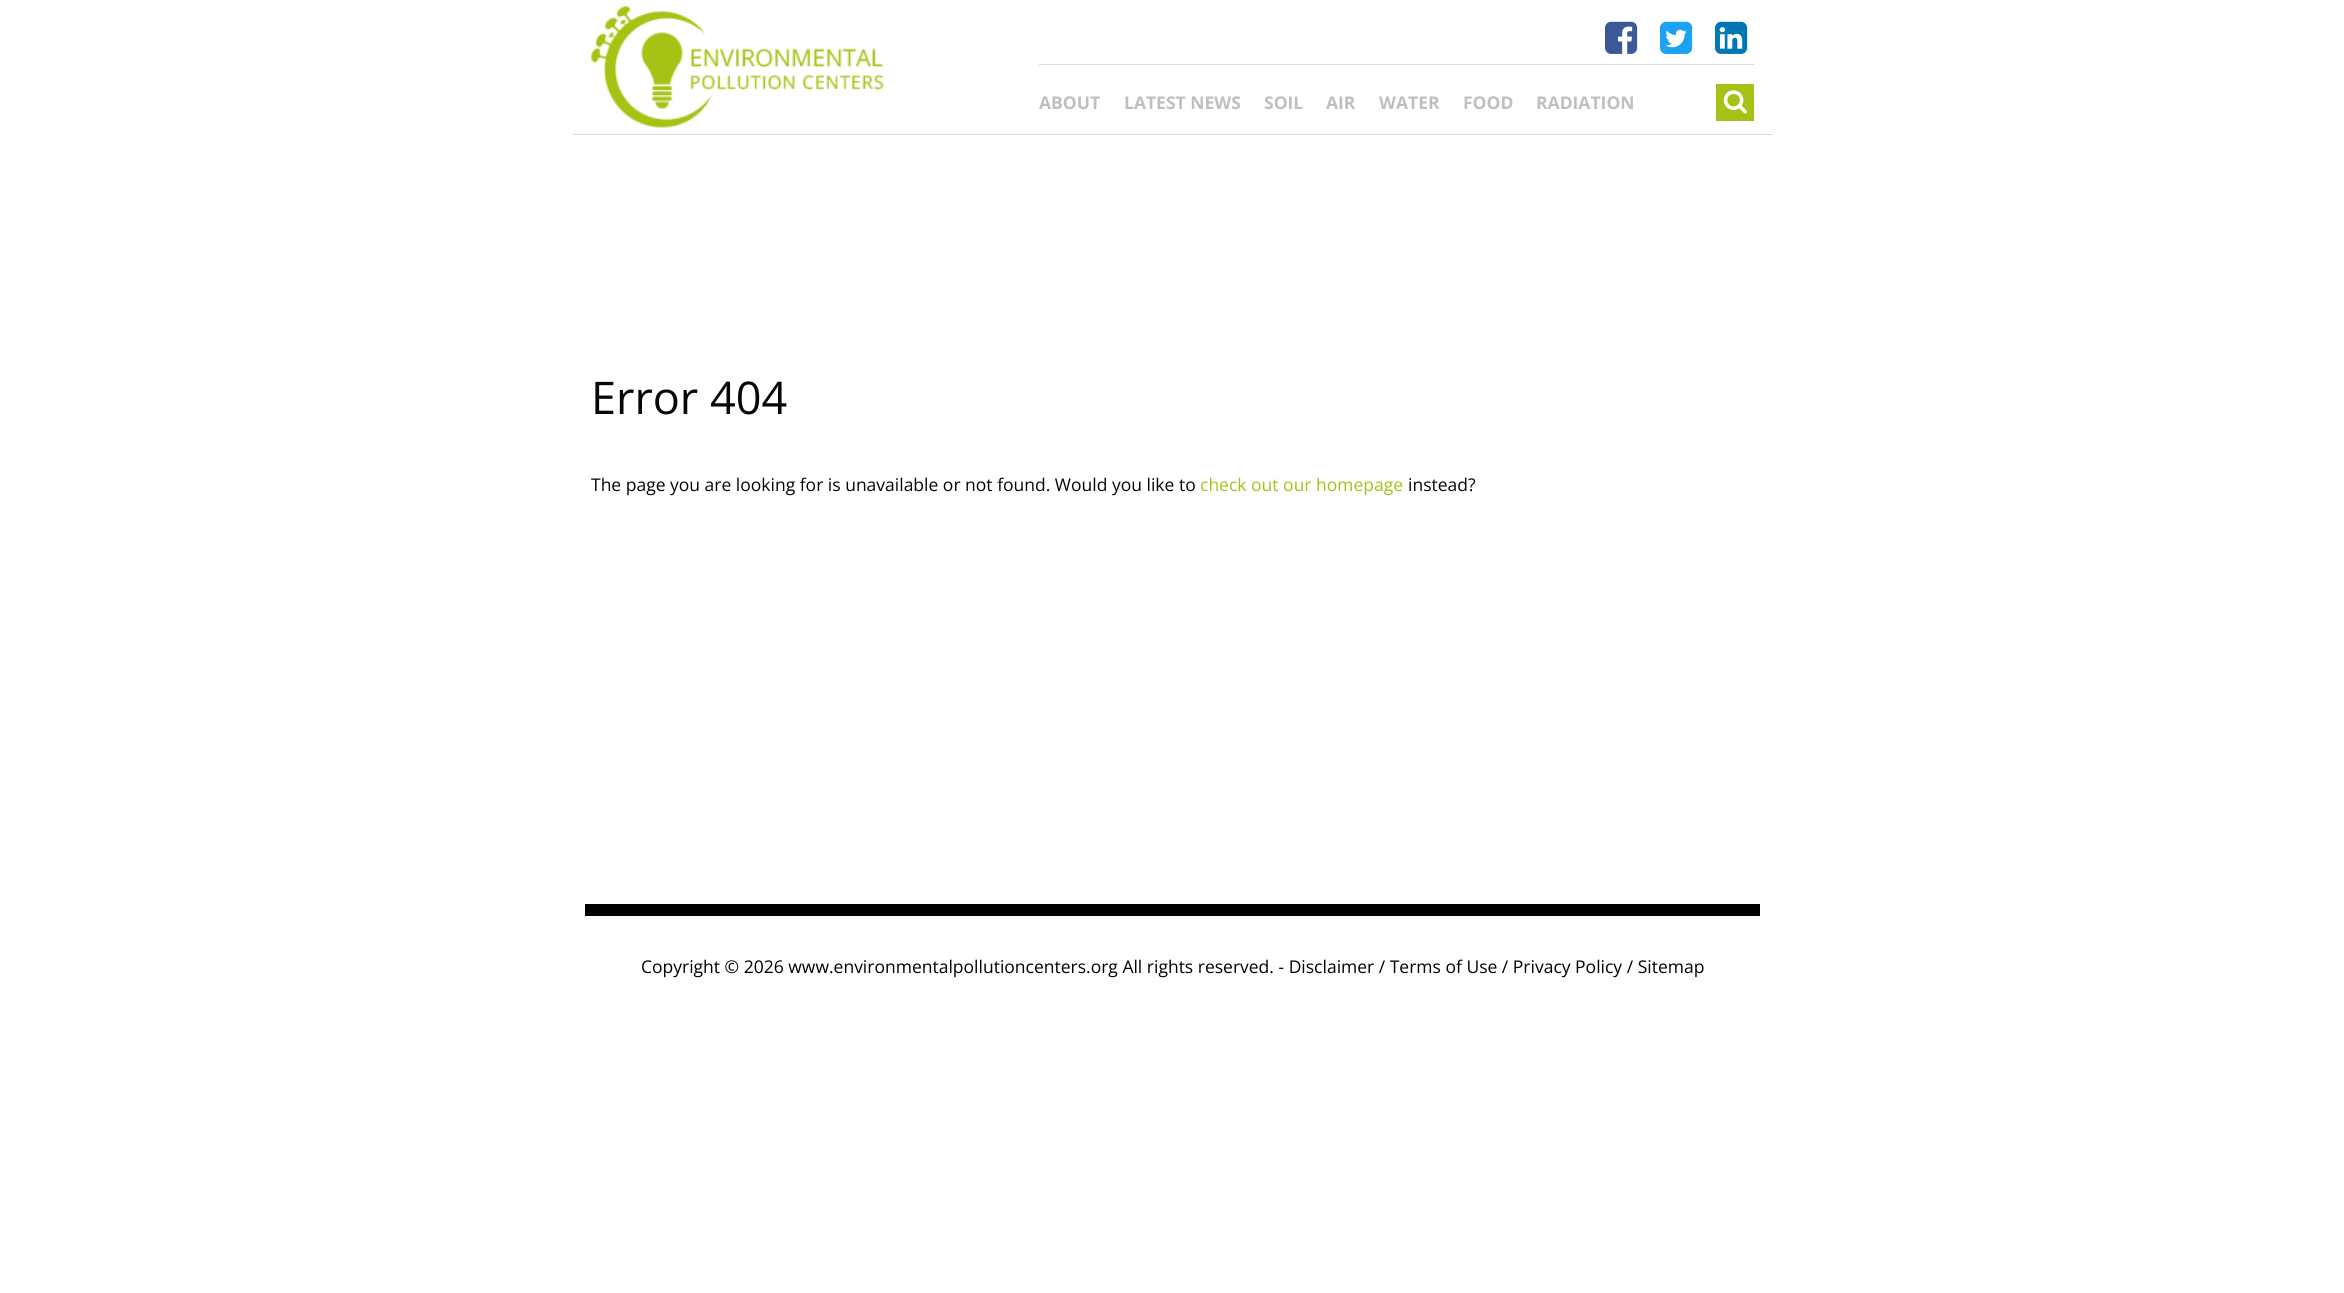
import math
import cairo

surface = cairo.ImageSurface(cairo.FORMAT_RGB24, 2344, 1293)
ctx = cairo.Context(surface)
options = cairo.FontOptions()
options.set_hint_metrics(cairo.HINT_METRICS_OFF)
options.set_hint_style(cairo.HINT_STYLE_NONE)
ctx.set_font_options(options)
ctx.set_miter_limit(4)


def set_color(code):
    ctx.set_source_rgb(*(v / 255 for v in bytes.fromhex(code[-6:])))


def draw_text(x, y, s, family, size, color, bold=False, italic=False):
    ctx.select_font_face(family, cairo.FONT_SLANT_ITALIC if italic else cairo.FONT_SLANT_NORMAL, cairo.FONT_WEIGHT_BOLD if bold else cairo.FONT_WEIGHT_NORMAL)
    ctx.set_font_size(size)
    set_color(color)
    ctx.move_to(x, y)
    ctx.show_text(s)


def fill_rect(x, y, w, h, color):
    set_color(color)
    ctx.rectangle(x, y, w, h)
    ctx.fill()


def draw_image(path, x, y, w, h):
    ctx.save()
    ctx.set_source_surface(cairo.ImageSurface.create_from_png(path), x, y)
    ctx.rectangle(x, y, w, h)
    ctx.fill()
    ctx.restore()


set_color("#ffffff")
ctx.paint()
fill_rect(573, 134, 1200, 1, "#d9d9d9")
draw_image("assets/img1.png", 591, 6, 293, 122)
fill_rect(1039, 64, 715, 1, "#d9d9d9")
draw_image("assets/img2.png", 1605, 21, 33, 33)
draw_image("assets/img3.png", 1660, 21, 33, 33)
draw_image("assets/img4.png", 1715, 21, 33, 33)
draw_text(1039, 109, "ABOUT", "Open Sans", 17.5, "#bfbfbf", bold=True)
draw_text(1124, 109, "LATEST NEWS", "Open Sans", 17.5, "#bfbfbf", bold=True)
draw_text(1264, 109, "SOIL", "Open Sans", 17.5, "#bfbfbf", bold=True)
draw_text(1326, 109, "AIR", "Open Sans", 17.5, "#bfbfbf", bold=True)
draw_text(1379, 109, "WATER", "Open Sans", 17.5, "#bfbfbf", bold=True)
draw_text(1463, 109, "FOOD", "Open Sans", 17.5, "#bfbfbf", bold=True)
draw_text(1536, 109, "RADIATION", "Open Sans", 17.5, "#bfbfbf", bold=True)
fill_rect(1716, 84, 38, 37, "#a6c214")
draw_image("assets/img5.png", 1723, 90, 24, 24)
draw_text(591, 414, "Error 404", "Open Sans", 45, "#060607")
draw_text(591, 491, "The page you are looking for is unavailable or not found. Would you like to", "Open Sans", 17.5, "#060607")
draw_text(1200, 491, "check out our homepage", "Open Sans", 17.5, "#a6c214")
draw_text(1408, 491, "instead?", "Open Sans", 17.5, "#060607")
fill_rect(585, 904, 1175, 12, "#000000")
draw_text(641, 973, "Copyright © 2026 www.environmentalpollutioncenters.org All rights reserved. - Disclaimer / Terms of Use / Privacy Policy / Sitemap", "Open Sans", 17.5, "#000000")
surface.write_to_png("output.png")
